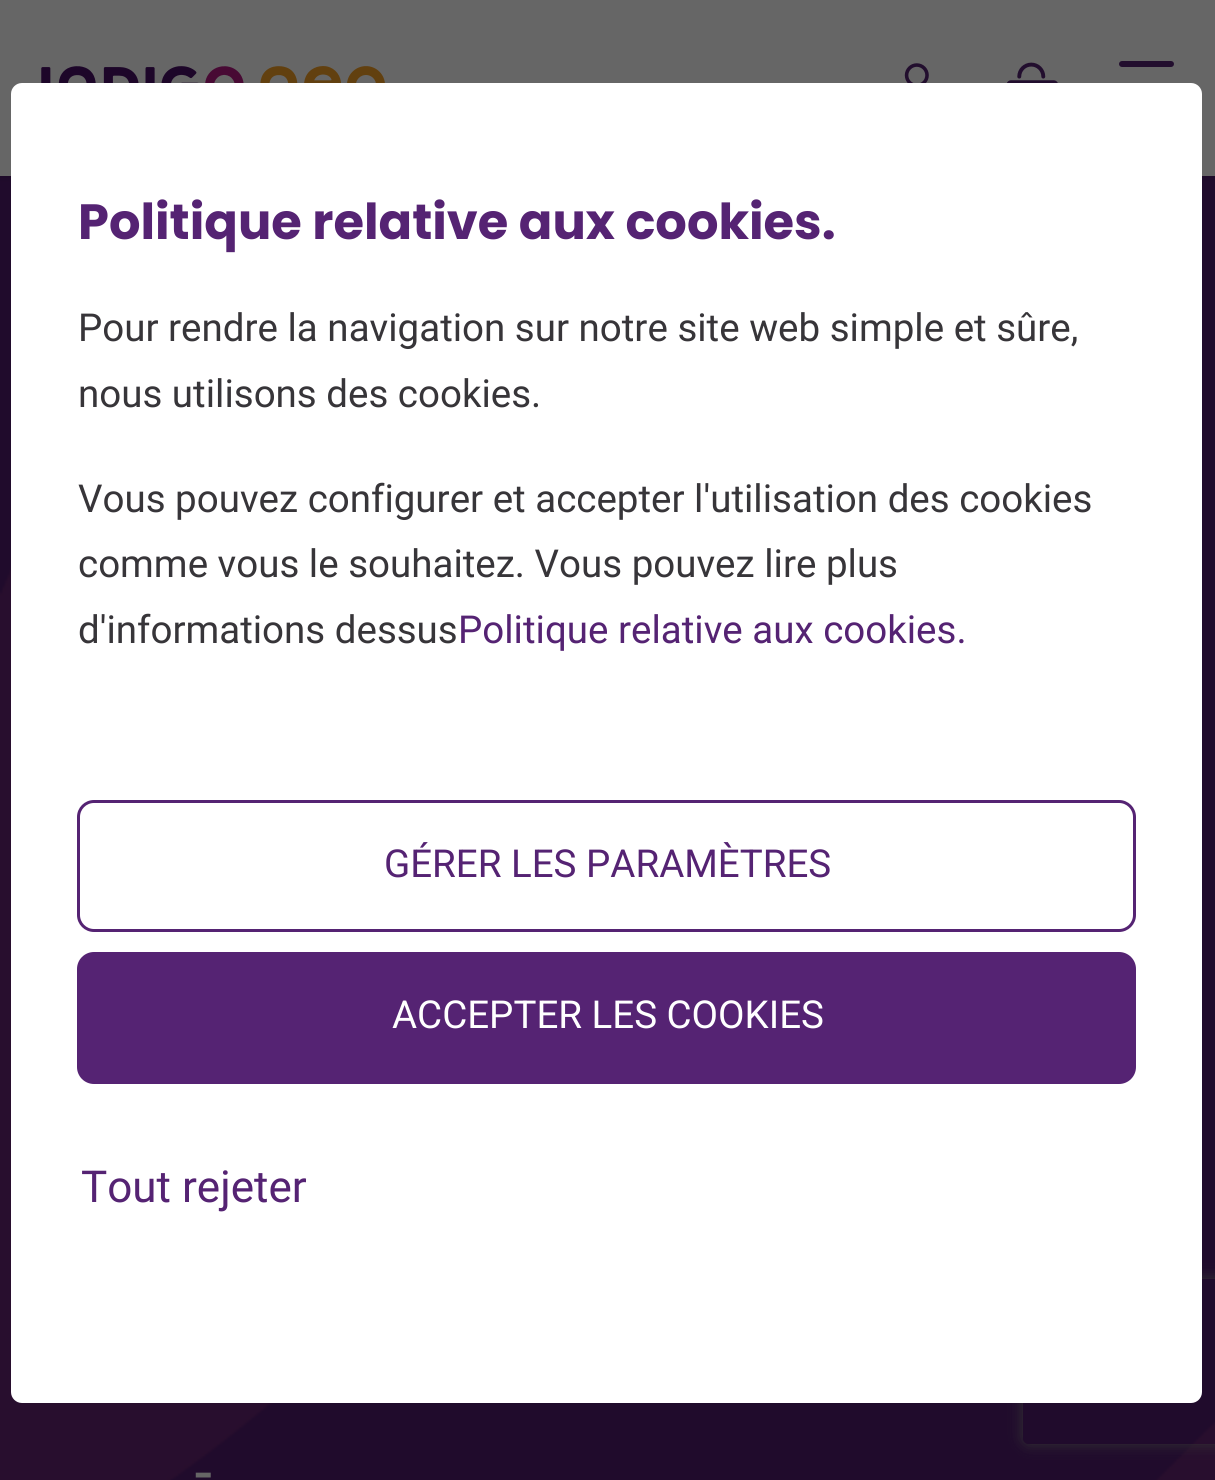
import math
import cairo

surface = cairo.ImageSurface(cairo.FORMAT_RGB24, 1215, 1480)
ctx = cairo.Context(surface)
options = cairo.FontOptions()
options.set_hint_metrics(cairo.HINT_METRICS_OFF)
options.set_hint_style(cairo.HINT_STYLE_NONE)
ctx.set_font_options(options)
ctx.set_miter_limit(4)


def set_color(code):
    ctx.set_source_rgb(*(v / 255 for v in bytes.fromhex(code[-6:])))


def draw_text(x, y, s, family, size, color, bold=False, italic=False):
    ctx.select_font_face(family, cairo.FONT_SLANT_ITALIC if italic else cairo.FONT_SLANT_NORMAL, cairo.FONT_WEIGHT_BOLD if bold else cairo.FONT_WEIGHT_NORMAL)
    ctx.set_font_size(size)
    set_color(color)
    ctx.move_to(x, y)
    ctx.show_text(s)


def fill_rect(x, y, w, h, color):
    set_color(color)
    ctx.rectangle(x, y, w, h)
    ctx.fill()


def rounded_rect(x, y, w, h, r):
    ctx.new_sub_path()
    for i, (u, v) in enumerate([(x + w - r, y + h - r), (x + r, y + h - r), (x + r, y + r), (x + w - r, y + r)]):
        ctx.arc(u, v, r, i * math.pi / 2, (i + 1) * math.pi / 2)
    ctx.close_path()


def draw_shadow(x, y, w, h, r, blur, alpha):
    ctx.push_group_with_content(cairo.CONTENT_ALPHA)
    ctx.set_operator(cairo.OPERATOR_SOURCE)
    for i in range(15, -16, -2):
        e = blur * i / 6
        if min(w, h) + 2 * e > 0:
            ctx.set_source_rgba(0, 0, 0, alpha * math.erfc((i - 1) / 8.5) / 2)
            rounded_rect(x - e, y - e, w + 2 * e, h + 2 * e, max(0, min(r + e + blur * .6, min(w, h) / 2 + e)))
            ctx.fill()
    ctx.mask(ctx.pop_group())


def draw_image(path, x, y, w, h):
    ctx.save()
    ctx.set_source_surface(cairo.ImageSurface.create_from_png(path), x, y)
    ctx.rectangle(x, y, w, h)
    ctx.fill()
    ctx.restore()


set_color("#ffffff")
ctx.paint()
draw_image("assets/img4.png", 0, 176, 1215, 1304)
ctx.save()
ctx.set_fill_rule(cairo.FILL_RULE_EVEN_ODD)
ctx.new_path()
ctx.move_to(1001, 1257)
ctx.line_to(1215, 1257)
ctx.line_to(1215, 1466)
ctx.line_to(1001, 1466)
ctx.close_path()
ctx.move_to(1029, 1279)
ctx.line_to(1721, 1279)
ctx.curve_to(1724.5, 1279, 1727, 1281.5, 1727, 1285)
ctx.line_to(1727, 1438)
ctx.curve_to(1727, 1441.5, 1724.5, 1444, 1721, 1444)
ctx.line_to(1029, 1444)
ctx.curve_to(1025.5, 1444, 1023, 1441.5, 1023, 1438)
ctx.line_to(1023, 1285)
ctx.curve_to(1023, 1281.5, 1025.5, 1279, 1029, 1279)
ctx.close_path()
ctx.clip()
set_color("#333333")
draw_shadow(1023, 1279, 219, 165, 6, 7, 1)
ctx.restore()
set_color("#000000")
draw_shadow(0, 0, 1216, 176, 0, 4, 0.15)
fill_rect(0, 0, 1215, 176, "#666666")
set_color("#ffffff")
rounded_rect(11, 83, 1191, 1320, 11)
ctx.fill()
draw_text(78, 239, "Politique relative aux cookies.", "Poppins", 49.5, "#552373", bold=True)
draw_text(78, 341, "Pour rendre la navigation sur notre site web simple et sûre,", "Roboto", 38.5, "#373539")
draw_text(78, 407, "nous utilisons des cookies.", "Roboto", 38.5, "#373539")
draw_text(78, 512, "Vous pouvez configurer et accepter l'utilisation des cookies", "Roboto", 38.5, "#373539")
draw_text(78, 577, "comme vous le souhaitez. Vous pouvez lire plus", "Roboto", 38.5, "#373539")
draw_text(78, 643, "d'informations dessus", "Roboto", 38.5, "#373539")
draw_text(458, 643, "Politique relative aux cookies.", "Roboto", 38.5, "#552373")
rounded_rect(78.5, 801.5, 1056, 129, 15.5)
ctx.set_line_width(3)
ctx.stroke()
draw_text(384, 877, "GÉRER LES PARAMÈTRES", "Roboto", 38.5, "#552373")
rounded_rect(77, 952, 1059, 132, 17)
ctx.fill()
draw_text(392, 1028, "ACCEPTER LES COOKIES", "Roboto", 38.5, "#ffffff")
draw_text(81, 1202, "Tout rejeter", "Roboto", 44, "#552373")
draw_image("assets/img1.png", 41, 66, 344, 17)
draw_image("assets/img2.png", 904, 63, 25, 20)
draw_image("assets/img3.png", 1007, 62, 51, 21)
set_color("#220e2e")
rounded_rect(1119, 61, 55, 6, 3)
ctx.fill()
draw_text(194, 1487, "-", "Poppins", 34, "#666666", bold=True)
surface.write_to_png("output.png")
